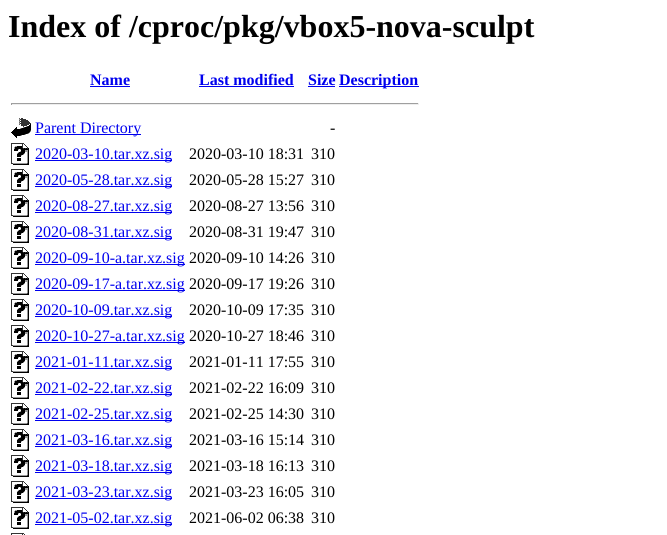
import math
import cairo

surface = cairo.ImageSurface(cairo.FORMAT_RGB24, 667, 535)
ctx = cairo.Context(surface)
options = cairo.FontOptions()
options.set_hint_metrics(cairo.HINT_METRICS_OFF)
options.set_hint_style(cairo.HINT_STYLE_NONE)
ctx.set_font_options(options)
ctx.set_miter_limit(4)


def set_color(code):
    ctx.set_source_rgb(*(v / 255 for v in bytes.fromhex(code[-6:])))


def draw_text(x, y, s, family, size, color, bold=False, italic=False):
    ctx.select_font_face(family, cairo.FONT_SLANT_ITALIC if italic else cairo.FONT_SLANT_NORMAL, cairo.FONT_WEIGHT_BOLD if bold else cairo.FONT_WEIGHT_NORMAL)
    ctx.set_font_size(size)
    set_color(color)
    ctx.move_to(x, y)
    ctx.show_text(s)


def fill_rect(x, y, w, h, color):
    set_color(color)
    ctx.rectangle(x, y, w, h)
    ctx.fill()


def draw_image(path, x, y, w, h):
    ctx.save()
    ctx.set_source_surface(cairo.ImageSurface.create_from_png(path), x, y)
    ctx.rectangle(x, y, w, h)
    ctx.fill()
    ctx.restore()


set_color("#ffffff")
ctx.paint()
draw_text(8, 37, "Index of /cproc/pkg/vbox5-nova-sculpt", "Liberation Serif", 32, "#000000", bold=True)
draw_text(90, 85, "Name", "Liberation Serif", 16, "#0000ee", bold=True)
fill_rect(90, 86, 40, 1, "#0000ee")
draw_text(199, 85, "Last modified", "Liberation Serif", 16, "#0000ee", bold=True)
fill_rect(199, 86, 95, 1, "#0000ee")
draw_text(308, 85, "Size", "Liberation Serif", 16, "#0000ee", bold=True)
fill_rect(308, 86, 27, 1, "#0000ee")
fill_rect(339, 86, 80, 1, "#0000ee")
draw_text(339, 85, "Description", "Liberation Serif", 16, "#0000ee", bold=True)
fill_rect(11, 103, 408, 1, "#9f9f9f")
fill_rect(418, 103, 1, 2, "#eeeeee")
fill_rect(11, 104, 408, 1, "#eeeeee")
fill_rect(11, 103, 1, 2, "#9f9f9f")
draw_image("assets/img1.png", 11, 118, 20, 20)
fill_rect(35, 134, 106, 1, "#0000ee")
draw_text(35, 133, "Parent Directory", "Liberation Serif", 16, "#0000ee")
draw_text(330, 133, "-", "Liberation Serif", 16, "#000000")
draw_image("assets/img2.png", 11, 143, 18, 22)
fill_rect(35, 160, 137, 1, "#0000ee")
draw_text(35, 159, "2020-03-10.tar.xz.sig", "Liberation Serif", 16, "#0000ee")
draw_text(189, 159, "2020-03-10 18:31", "Liberation Serif", 16, "#000000")
draw_text(311, 159, "310", "Liberation Serif", 16, "#000000")
draw_image("assets/img2.png", 11, 169, 18, 22)
fill_rect(35, 186, 137, 1, "#0000ee")
draw_text(35, 185, "2020-05-28.tar.xz.sig", "Liberation Serif", 16, "#0000ee")
draw_text(189, 185, "2020-05-28 15:27", "Liberation Serif", 16, "#000000")
draw_text(311, 185, "310", "Liberation Serif", 16, "#000000")
draw_image("assets/img2.png", 11, 195, 18, 22)
fill_rect(35, 212, 137, 1, "#0000ee")
draw_text(35, 211, "2020-08-27.tar.xz.sig", "Liberation Serif", 16, "#0000ee")
draw_text(189, 211, "2020-08-27 13:56", "Liberation Serif", 16, "#000000")
draw_text(311, 211, "310", "Liberation Serif", 16, "#000000")
draw_image("assets/img2.png", 11, 221, 18, 22)
fill_rect(35, 238, 137, 1, "#0000ee")
draw_text(35, 237, "2020-08-31.tar.xz.sig", "Liberation Serif", 16, "#0000ee")
draw_text(189, 237, "2020-08-31 19:47", "Liberation Serif", 16, "#000000")
draw_text(311, 237, "310", "Liberation Serif", 16, "#000000")
draw_image("assets/img2.png", 11, 247, 18, 22)
fill_rect(35, 264, 150, 1, "#0000ee")
draw_text(35, 263, "2020-09-10-a.tar.xz.sig", "Liberation Serif", 16, "#0000ee")
draw_text(189, 263, "2020-09-10 14:26", "Liberation Serif", 16, "#000000")
draw_text(311, 263, "310", "Liberation Serif", 16, "#000000")
draw_image("assets/img2.png", 11, 273, 18, 22)
fill_rect(35, 290, 150, 1, "#0000ee")
draw_text(35, 289, "2020-09-17-a.tar.xz.sig", "Liberation Serif", 16, "#0000ee")
draw_text(189, 289, "2020-09-17 19:26", "Liberation Serif", 16, "#000000")
draw_text(311, 289, "310", "Liberation Serif", 16, "#000000")
draw_image("assets/img2.png", 11, 299, 18, 22)
fill_rect(35, 316, 137, 1, "#0000ee")
draw_text(35, 315, "2020-10-09.tar.xz.sig", "Liberation Serif", 16, "#0000ee")
draw_text(189, 315, "2020-10-09 17:35", "Liberation Serif", 16, "#000000")
draw_text(311, 315, "310", "Liberation Serif", 16, "#000000")
draw_image("assets/img2.png", 11, 325, 18, 22)
fill_rect(35, 342, 150, 1, "#0000ee")
draw_text(35, 341, "2020-10-27-a.tar.xz.sig", "Liberation Serif", 16, "#0000ee")
draw_text(189, 341, "2020-10-27 18:46", "Liberation Serif", 16, "#000000")
draw_text(311, 341, "310", "Liberation Serif", 16, "#000000")
draw_image("assets/img2.png", 11, 351, 18, 22)
fill_rect(35, 368, 137, 1, "#0000ee")
draw_text(35, 367, "2021-01-11.tar.xz.sig", "Liberation Serif", 16, "#0000ee")
draw_text(189, 367, "2021-01-11 17:55", "Liberation Serif", 16, "#000000")
draw_text(311, 367, "310", "Liberation Serif", 16, "#000000")
draw_image("assets/img2.png", 11, 377, 18, 22)
fill_rect(35, 394, 137, 1, "#0000ee")
draw_text(35, 393, "2021-02-22.tar.xz.sig", "Liberation Serif", 16, "#0000ee")
draw_text(189, 393, "2021-02-22 16:09", "Liberation Serif", 16, "#000000")
draw_text(311, 393, "310", "Liberation Serif", 16, "#000000")
draw_image("assets/img2.png", 11, 403, 18, 22)
fill_rect(35, 420, 137, 1, "#0000ee")
draw_text(35, 419, "2021-02-25.tar.xz.sig", "Liberation Serif", 16, "#0000ee")
draw_text(189, 419, "2021-02-25 14:30", "Liberation Serif", 16, "#000000")
draw_text(311, 419, "310", "Liberation Serif", 16, "#000000")
draw_image("assets/img2.png", 11, 429, 18, 22)
fill_rect(35, 446, 137, 1, "#0000ee")
draw_text(35, 445, "2021-03-16.tar.xz.sig", "Liberation Serif", 16, "#0000ee")
draw_text(189, 445, "2021-03-16 15:14", "Liberation Serif", 16, "#000000")
draw_text(311, 445, "310", "Liberation Serif", 16, "#000000")
draw_image("assets/img2.png", 11, 455, 18, 22)
fill_rect(35, 472, 137, 1, "#0000ee")
draw_text(35, 471, "2021-03-18.tar.xz.sig", "Liberation Serif", 16, "#0000ee")
draw_text(189, 471, "2021-03-18 16:13", "Liberation Serif", 16, "#000000")
draw_text(311, 471, "310", "Liberation Serif", 16, "#000000")
draw_image("assets/img2.png", 11, 481, 18, 22)
fill_rect(35, 498, 137, 1, "#0000ee")
draw_text(35, 497, "2021-03-23.tar.xz.sig", "Liberation Serif", 16, "#0000ee")
draw_text(189, 497, "2021-03-23 16:05", "Liberation Serif", 16, "#000000")
draw_text(311, 497, "310", "Liberation Serif", 16, "#000000")
draw_image("assets/img2.png", 11, 507, 18, 22)
fill_rect(35, 524, 137, 1, "#0000ee")
draw_text(35, 523, "2021-05-02.tar.xz.sig", "Liberation Serif", 16, "#0000ee")
draw_text(189, 523, "2021-06-02 06:38", "Liberation Serif", 16, "#000000")
draw_text(311, 523, "310", "Liberation Serif", 16, "#000000")
draw_image("assets/img3.png", 11, 533, 14, 2)
surface.write_to_png("output.png")
